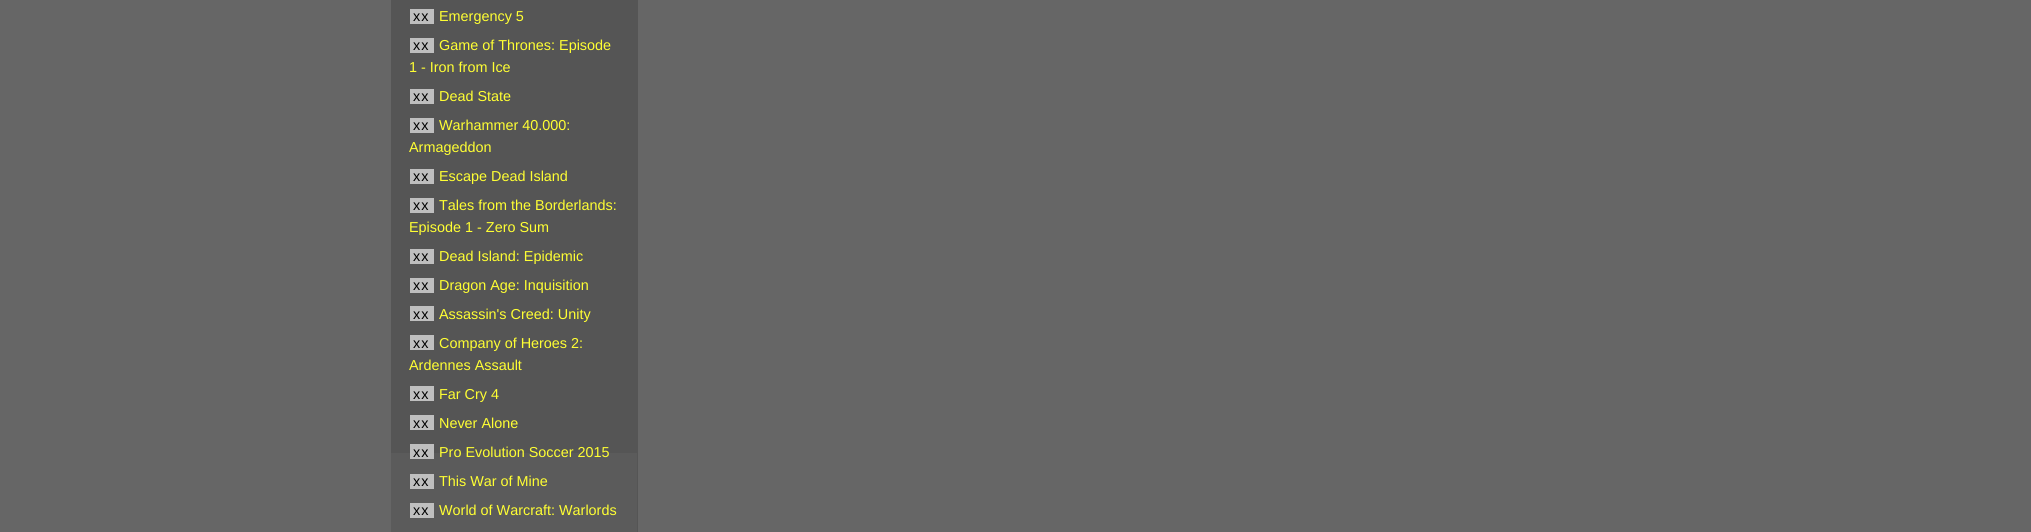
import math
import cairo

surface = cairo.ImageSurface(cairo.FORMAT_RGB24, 2031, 532)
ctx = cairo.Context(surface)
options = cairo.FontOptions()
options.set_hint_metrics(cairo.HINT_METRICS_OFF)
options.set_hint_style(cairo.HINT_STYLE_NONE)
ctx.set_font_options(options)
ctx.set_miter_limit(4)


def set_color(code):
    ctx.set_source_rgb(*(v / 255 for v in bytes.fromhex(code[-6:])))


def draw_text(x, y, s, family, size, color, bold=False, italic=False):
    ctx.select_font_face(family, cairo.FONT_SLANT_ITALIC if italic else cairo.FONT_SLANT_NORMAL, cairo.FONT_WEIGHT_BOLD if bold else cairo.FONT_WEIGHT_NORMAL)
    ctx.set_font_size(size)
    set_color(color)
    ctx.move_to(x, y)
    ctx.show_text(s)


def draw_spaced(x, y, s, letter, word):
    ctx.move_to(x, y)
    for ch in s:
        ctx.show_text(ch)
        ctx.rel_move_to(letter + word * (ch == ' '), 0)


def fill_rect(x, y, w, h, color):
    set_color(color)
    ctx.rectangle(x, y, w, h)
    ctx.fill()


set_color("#666666")
ctx.paint()
fill_rect(391, 0, 247, 532, "#555555")
fill_rect(391, 453, 246, 79, "#5b5b5b")
fill_rect(410, 9, 24, 15, "#bfbfbf")
ctx.select_font_face("Liberation Sans")
ctx.set_font_size(14.4)
set_color("#000000")
draw_spaced(413, 21, "xx", 1, 0)
draw_text(439, 21, "Emergency 5", "Liberation Sans", 14.4, "#ffff33")
fill_rect(410, 38, 24, 15, "#bfbfbf")
set_color("#000000")
draw_spaced(413, 50, "xx", 1, 0)
draw_text(439, 50, "Game of Thrones: Episode", "Liberation Sans", 14.4, "#ffff33")
draw_text(409, 72, "1 - Iron from Ice", "Liberation Sans", 14.4, "#ffff33")
fill_rect(410, 89, 24, 15, "#bfbfbf")
set_color("#000000")
draw_spaced(413, 101, "xx", 1, 0)
draw_text(439, 101, "Dead State", "Liberation Sans", 14.4, "#ffff33")
fill_rect(410, 118, 24, 15, "#bfbfbf")
set_color("#000000")
draw_spaced(413, 130, "xx", 1, 0)
draw_text(439, 130, "Warhammer 40.000:", "Liberation Sans", 14.4, "#ffff33")
draw_text(409, 152, "Armageddon", "Liberation Sans", 14.4, "#ffff33")
fill_rect(410, 169, 24, 15, "#bfbfbf")
set_color("#000000")
draw_spaced(413, 181, "xx", 1, 0)
draw_text(439, 181, "Escape Dead Island", "Liberation Sans", 14.4, "#ffff33")
fill_rect(410, 198, 24, 15, "#bfbfbf")
set_color("#000000")
draw_spaced(413, 210, "xx", 1, 0)
draw_text(439, 210, "Tales from the Borderlands:", "Liberation Sans", 14.4, "#ffff33")
draw_text(409, 232, "Episode 1 - Zero Sum", "Liberation Sans", 14.4, "#ffff33")
fill_rect(410, 249, 24, 15, "#bfbfbf")
set_color("#000000")
draw_spaced(413, 261, "xx", 1, 0)
draw_text(439, 261, "Dead Island: Epidemic", "Liberation Sans", 14.4, "#ffff33")
fill_rect(410, 278, 24, 15, "#bfbfbf")
set_color("#000000")
draw_spaced(413, 290, "xx", 1, 0)
draw_text(439, 290, "Dragon Age: Inquisition", "Liberation Sans", 14.4, "#ffff33")
fill_rect(410, 306, 24, 15, "#bfbfbf")
set_color("#000000")
draw_spaced(413, 319, "xx", 1, 0)
draw_text(439, 319, "Assassin's Creed: Unity", "Liberation Sans", 14.4, "#ffff33")
fill_rect(410, 335, 24, 15, "#bfbfbf")
set_color("#000000")
draw_spaced(413, 348, "xx", 1, 0)
draw_text(439, 348, "Company of Heroes 2:", "Liberation Sans", 14.4, "#ffff33")
draw_text(409, 370, "Ardennes Assault", "Liberation Sans", 14.4, "#ffff33")
fill_rect(410, 386, 24, 15, "#bfbfbf")
set_color("#000000")
draw_spaced(413, 399, "xx", 1, 0)
draw_text(439, 399, "Far Cry 4", "Liberation Sans", 14.4, "#ffff33")
fill_rect(410, 415, 24, 15, "#bfbfbf")
set_color("#000000")
draw_spaced(413, 428, "xx", 1, 0)
draw_text(439, 428, "Never Alone", "Liberation Sans", 14.4, "#ffff33")
fill_rect(410, 444, 24, 15, "#bfbfbf")
set_color("#000000")
draw_spaced(413, 457, "xx", 1, 0)
draw_text(439, 457, "Pro Evolution Soccer 2015", "Liberation Sans", 14.4, "#ffff33")
fill_rect(410, 474, 24, 15, "#bfbfbf")
set_color("#000000")
draw_spaced(413, 486, "xx", 1, 0)
draw_text(439, 486, "This War of Mine", "Liberation Sans", 14.4, "#ffff33")
fill_rect(410, 503, 24, 15, "#bfbfbf")
set_color("#000000")
draw_spaced(413, 515, "xx", 1, 0)
draw_text(439, 515, "World of Warcraft: Warlords", "Liberation Sans", 14.4, "#ffff33")
surface.write_to_png("output.png")
